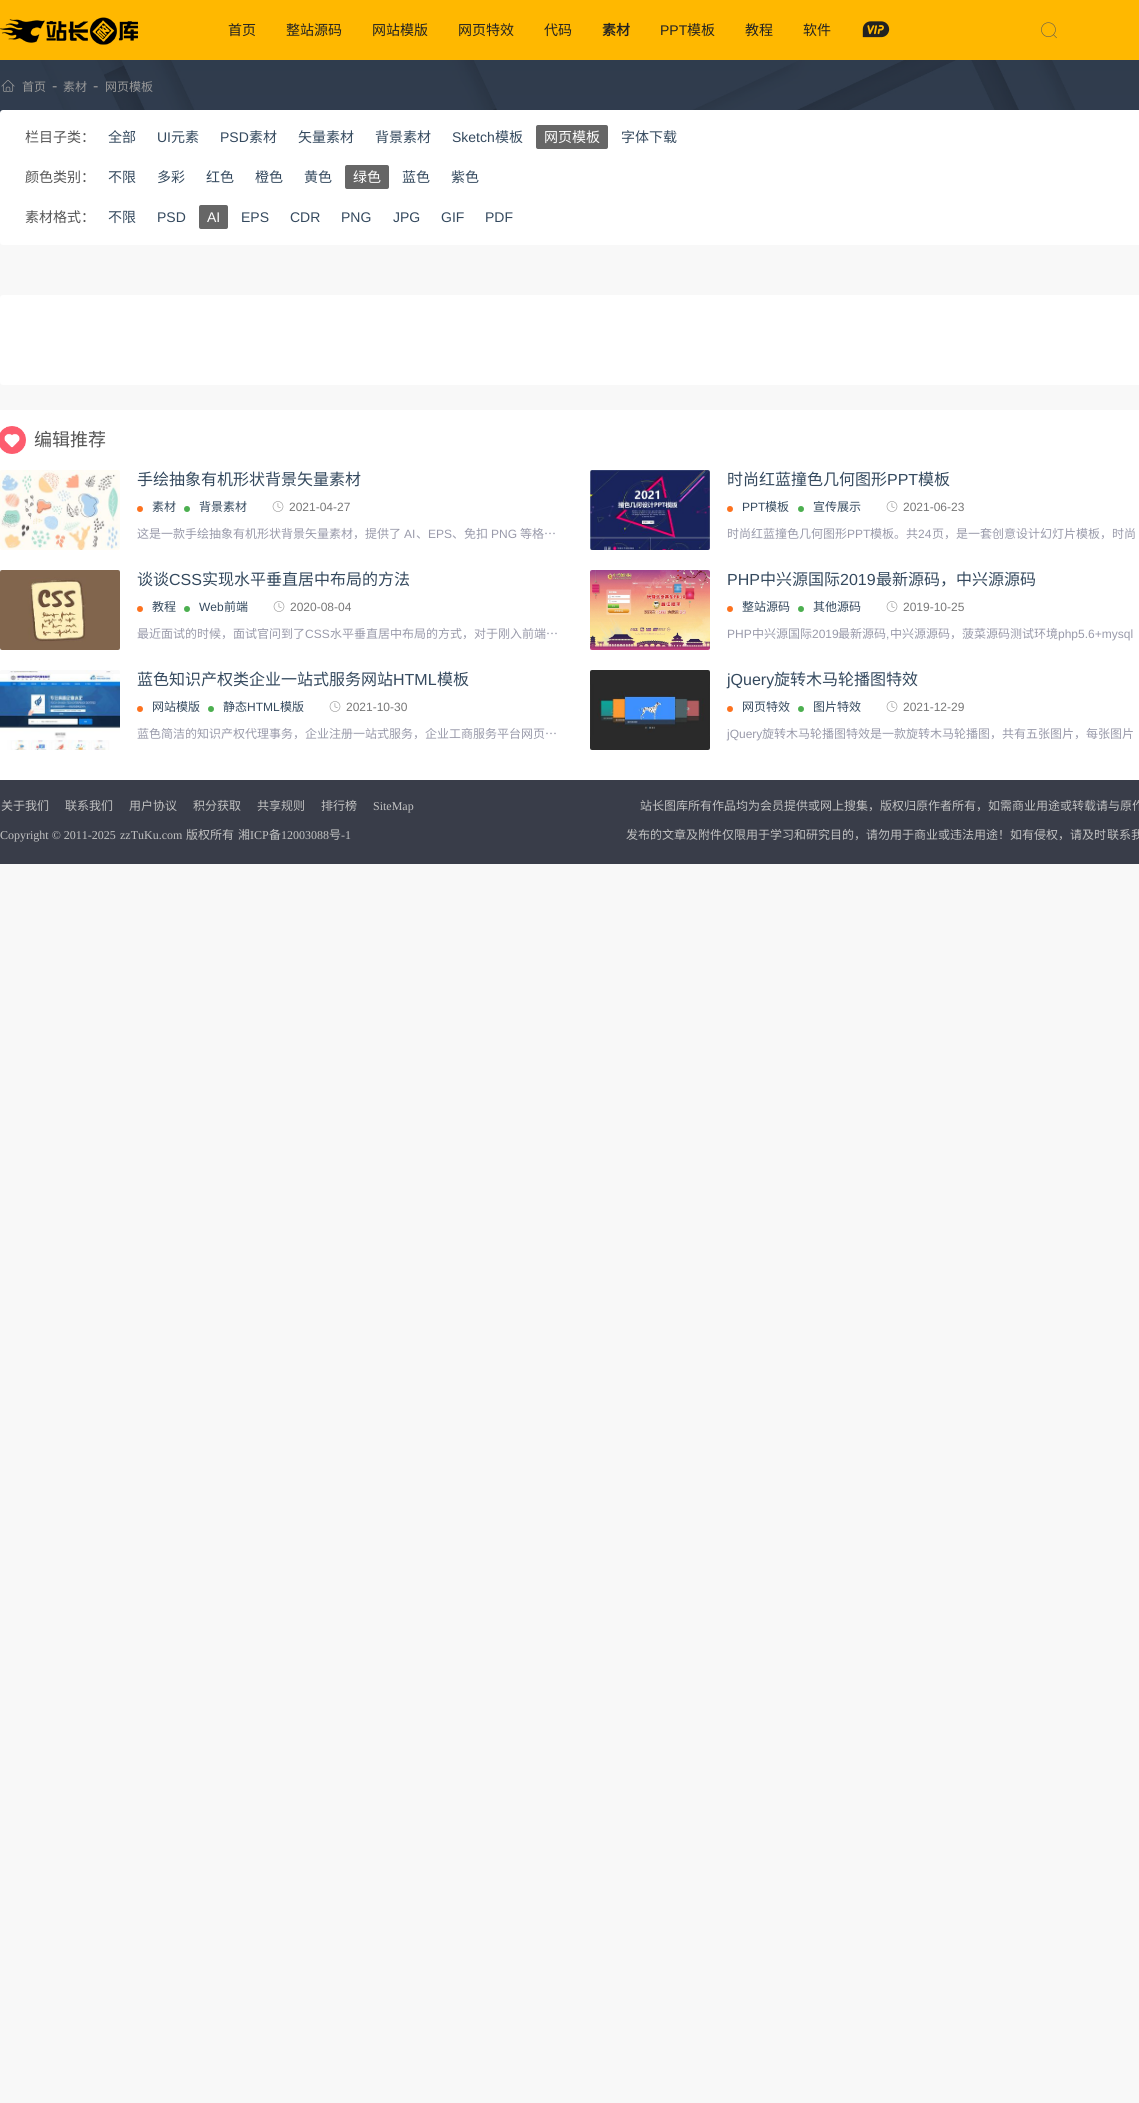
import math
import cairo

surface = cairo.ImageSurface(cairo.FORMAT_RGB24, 1139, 2103)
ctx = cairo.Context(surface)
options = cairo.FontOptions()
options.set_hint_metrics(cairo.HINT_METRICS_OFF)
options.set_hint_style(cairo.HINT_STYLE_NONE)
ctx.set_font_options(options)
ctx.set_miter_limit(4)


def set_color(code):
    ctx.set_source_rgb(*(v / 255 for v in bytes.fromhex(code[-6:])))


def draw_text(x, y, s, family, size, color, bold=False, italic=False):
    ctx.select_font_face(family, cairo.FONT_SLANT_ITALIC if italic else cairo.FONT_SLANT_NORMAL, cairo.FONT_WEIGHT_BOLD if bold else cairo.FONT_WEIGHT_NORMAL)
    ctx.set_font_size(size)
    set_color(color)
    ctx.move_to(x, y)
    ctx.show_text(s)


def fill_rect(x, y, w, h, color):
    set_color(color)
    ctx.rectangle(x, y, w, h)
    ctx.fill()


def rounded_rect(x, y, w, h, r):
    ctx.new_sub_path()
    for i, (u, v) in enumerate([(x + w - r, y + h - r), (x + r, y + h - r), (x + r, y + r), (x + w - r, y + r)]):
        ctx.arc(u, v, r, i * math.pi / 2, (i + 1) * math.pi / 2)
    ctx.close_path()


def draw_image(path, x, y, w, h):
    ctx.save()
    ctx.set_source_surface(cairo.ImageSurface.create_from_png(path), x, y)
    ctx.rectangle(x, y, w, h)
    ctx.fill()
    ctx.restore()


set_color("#f8f8f8")
ctx.paint()
fill_rect(0, 0, 1139, 60, "#ffb800")
draw_image("assets/img1.png", 0, 17, 138, 28)
draw_text(228, 35, "首页", "Noto Sans CJK SC", 14, "#222222")
draw_text(286, 35, "整站源码", "Noto Sans CJK SC", 14, "#222222")
draw_text(372, 35, "网站模版", "Noto Sans CJK SC", 14, "#222222")
draw_text(458, 35, "网页特效", "Noto Sans CJK SC", 14, "#222222")
draw_text(544, 35, "代码", "Noto Sans CJK SC", 14, "#222222")
draw_text(602, 35, "素材", "Noto Sans CJK SC", 14, "#222222", bold=True)
draw_text(660, 35, "PPT", "Liberation Sans", 14, "#222222")
draw_text(687, 35, "模板", "Noto Sans CJK SC", 14, "#222222")
draw_text(745, 35, "教程", "Noto Sans CJK SC", 14, "#222222")
draw_text(803, 35, "软件", "Noto Sans CJK SC", 14, "#222222")
draw_image("assets/img2.png", 862, 21, 28, 17)
draw_image("assets/img3.png", 1041, 22, 16, 17)
draw_image("assets/img4.png", 0, 60, 1139, 53)
draw_image("assets/img5.png", 1, 80, 14, 12)
draw_text(22, 91, "首页", "Noto Sans CJK SC", 12, "#999999")
draw_text(52, 91, "-", "Liberation Sans", 16, "#999999")
draw_text(63, 91, "素材", "Noto Sans CJK SC", 12, "#999999")
draw_text(93, 91, "-", "Liberation Sans", 16, "#999999")
draw_text(105, 91, "网页模板", "Noto Sans CJK SC", 12, "#999999")
set_color("#ffffff")
rounded_rect(0, 110, 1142, 135, 3)
ctx.fill()
draw_text(25, 142, "栏目子类：", "Noto Sans CJK SC", 14, "#555555")
draw_text(108, 142, "全部", "Noto Sans CJK SC", 14, "#34495e")
draw_text(157, 142, "UI", "Liberation Sans", 14, "#34495e")
draw_text(171, 142, "元素", "Noto Sans CJK SC", 14, "#34495e")
draw_text(220, 142, "PSD", "Liberation Sans", 14, "#34495e")
draw_text(249, 142, "素材", "Noto Sans CJK SC", 14, "#34495e")
draw_text(298, 142, "矢量素材", "Noto Sans CJK SC", 14, "#34495e")
draw_text(375, 142, "背景素材", "Noto Sans CJK SC", 14, "#34495e")
draw_text(452, 142, "Sketch", "Liberation Sans", 14, "#34495e")
draw_text(495, 142, "模板", "Noto Sans CJK SC", 14, "#34495e")
set_color("#666666")
rounded_rect(536, 125, 72, 24, 2)
ctx.fill()
draw_text(544, 142, "网页模板", "Noto Sans CJK SC", 14, "#ffffff")
draw_text(621, 142, "字体下载", "Noto Sans CJK SC", 14, "#34495e")
draw_text(25, 182, "颜色类别：", "Noto Sans CJK SC", 14, "#555555")
draw_text(108, 182, "不限", "Noto Sans CJK SC", 14, "#34495e")
draw_text(157, 182, "多彩", "Noto Sans CJK SC", 14, "#34495e")
draw_text(206, 182, "红色", "Noto Sans CJK SC", 14, "#34495e")
draw_text(255, 182, "橙色", "Noto Sans CJK SC", 14, "#34495e")
draw_text(304, 182, "黄色", "Noto Sans CJK SC", 14, "#34495e")
set_color("#666666")
rounded_rect(345, 165, 44, 24, 2)
ctx.fill()
draw_text(353, 182, "绿色", "Noto Sans CJK SC", 14, "#ffffff")
draw_text(402, 182, "蓝色", "Noto Sans CJK SC", 14, "#34495e")
draw_text(451, 182, "紫色", "Noto Sans CJK SC", 14, "#34495e")
draw_text(25, 222, "素材格式：", "Noto Sans CJK SC", 14, "#555555")
draw_text(108, 222, "不限", "Noto Sans CJK SC", 14, "#34495e")
draw_text(157, 222, "PSD", "Liberation Sans", 14, "#34495e")
set_color("#666666")
rounded_rect(199, 205, 29, 24, 2)
ctx.fill()
draw_text(207, 222, "AI", "Liberation Sans", 14, "#ffffff")
draw_text(241, 222, "EPS", "Liberation Sans", 14, "#34495e")
draw_text(290, 222, "CDR", "Liberation Sans", 14, "#34495e")
draw_text(341, 222, "PNG", "Liberation Sans", 14, "#34495e")
draw_text(393, 222, "JPG", "Liberation Sans", 14, "#34495e")
draw_text(441, 222, "GIF", "Liberation Sans", 14, "#34495e")
draw_text(485, 222, "PDF", "Liberation Sans", 14, "#34495e")
set_color("#ffffff")
rounded_rect(0, 295, 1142, 90, 3)
ctx.fill()
fill_rect(0, 410, 1139, 370, "#ffffff")
draw_image("assets/img6.png", 0, 426, 26, 28)
draw_text(34, 446, "编辑推荐", "Noto Sans CJK SC", 18, "#555555")
draw_image("assets/img7.png", 0, 470, 120, 80)
draw_text(137, 485, "手绘抽象有机形状背景矢量素材", "Noto Sans CJK SC", 16, "#34495e")
set_color("#fd721f")
ctx.new_path()
ctx.arc(140, 509, 3, 0, 2 * math.pi)
ctx.fill()
draw_text(152, 511, "素材", "Noto Sans CJK SC", 12, "#34495e")
set_color("#4caf50")
ctx.new_path()
ctx.arc(187, 509, 3, 0, 2 * math.pi)
ctx.fill()
draw_text(199, 511, "背景素材", "Noto Sans CJK SC", 12, "#34495e")
draw_image("assets/img8.png", 272, 501, 12, 11)
draw_text(289, 511, "2021-04-27", "Liberation Sans", 12, "#777777")
draw_text(137, 538, "这是一款手绘抽象有机形状背景矢量素材，提供了", "Noto Sans CJK SC", 12, "#999aaa")
draw_text(404, 538, "AI", "Liberation Sans", 12, "#999aaa")
draw_text(416, 538, "、", "Noto Sans CJK SC", 12, "#999aaa")
draw_text(428, 538, "EPS", "Liberation Sans", 12, "#999aaa")
draw_text(452, 538, "、免扣", "Noto Sans CJK SC", 12, "#999aaa")
draw_text(491, 538, "PNG", "Liberation Sans", 12, "#999aaa")
draw_text(520, 538, "等格…", "Noto Sans CJK SC", 12, "#999aaa")
draw_image("assets/img9.png", 590, 470, 120, 80)
draw_text(727, 485, "时尚红蓝撞色几何图形", "Noto Sans CJK SC", 16, "#34495e")
draw_text(887, 485, "PPT", "Liberation Sans", 16, "#34495e")
draw_text(918, 485, "模板", "Noto Sans CJK SC", 16, "#34495e")
set_color("#fd721f")
ctx.new_path()
ctx.arc(730, 509, 3, 0, 2 * math.pi)
ctx.fill()
draw_text(742, 511, "PPT", "Liberation Sans", 12, "#34495e")
draw_text(765, 511, "模板", "Noto Sans CJK SC", 12, "#34495e")
set_color("#4caf50")
ctx.new_path()
ctx.arc(801, 509, 3, 0, 2 * math.pi)
ctx.fill()
draw_text(813, 511, "宣传展示", "Noto Sans CJK SC", 12, "#34495e")
draw_image("assets/img8.png", 886, 501, 12, 11)
draw_text(903, 511, "2021-06-23", "Liberation Sans", 12, "#777777")
draw_text(727, 538, "时尚红蓝撞色几何图形", "Noto Sans CJK SC", 12, "#999aaa")
draw_text(847, 538, "PPT", "Liberation Sans", 12, "#999aaa")
draw_text(870, 538, "模板。共", "Noto Sans CJK SC", 12, "#999aaa")
draw_text(918, 538, "24", "Liberation Sans", 12, "#999aaa")
draw_text(932, 538, "页，是一套创意设计幻灯片模板，时尚", "Noto Sans CJK SC", 12, "#999aaa")
draw_image("assets/img10.png", 0, 570, 120, 80)
draw_text(137, 585, "谈谈", "Noto Sans CJK SC", 16, "#34495e")
draw_text(169, 585, "CSS", "Liberation Sans", 16, "#34495e")
draw_text(202, 585, "实现水平垂直居中布局的方法", "Noto Sans CJK SC", 16, "#34495e")
set_color("#fd721f")
ctx.new_path()
ctx.arc(140, 609, 3, 0, 2 * math.pi)
ctx.fill()
draw_text(152, 611, "教程", "Noto Sans CJK SC", 12, "#34495e")
set_color("#4caf50")
ctx.new_path()
ctx.arc(187, 609, 3, 0, 2 * math.pi)
ctx.fill()
draw_text(199, 611, "Web", "Liberation Sans", 12, "#34495e")
draw_text(224, 611, "前端", "Noto Sans CJK SC", 12, "#34495e")
draw_image("assets/img8.png", 273, 601, 12, 11)
draw_text(290, 611, "2020-08-04", "Liberation Sans", 12, "#777777")
draw_text(137, 638, "最近面试的时候，面试官问到了", "Noto Sans CJK SC", 12, "#999aaa")
draw_text(305, 638, "CSS", "Liberation Sans", 12, "#999aaa")
draw_text(330, 638, "水平垂直居中布局的方式，对于刚入前端…", "Noto Sans CJK SC", 12, "#999aaa")
draw_image("assets/img11.png", 590, 570, 120, 80)
draw_text(727, 585, "PHP", "Liberation Sans", 16, "#34495e")
draw_text(760, 585, "中兴源国际", "Noto Sans CJK SC", 16, "#34495e")
draw_text(840, 585, "2019", "Liberation Sans", 16, "#34495e")
draw_text(876, 585, "最新源码，中兴源源码", "Noto Sans CJK SC", 16, "#34495e")
set_color("#fd721f")
ctx.new_path()
ctx.arc(730, 609, 3, 0, 2 * math.pi)
ctx.fill()
draw_text(742, 611, "整站源码", "Noto Sans CJK SC", 12, "#34495e")
set_color("#4caf50")
ctx.new_path()
ctx.arc(801, 609, 3, 0, 2 * math.pi)
ctx.fill()
draw_text(813, 611, "其他源码", "Noto Sans CJK SC", 12, "#34495e")
draw_image("assets/img8.png", 886, 601, 12, 11)
draw_text(903, 611, "2019-10-25", "Liberation Sans", 12, "#777777")
draw_text(727, 638, "PHP", "Liberation Sans", 12, "#999aaa")
draw_text(752, 638, "中兴源国际", "Noto Sans CJK SC", 12, "#999aaa")
draw_text(812, 638, "2019", "Liberation Sans", 12, "#999aaa")
draw_text(838, 638, "最新源码", "Noto Sans CJK SC", 12, "#999aaa")
draw_text(886, 638, ",", "Liberation Sans", 12, "#999aaa")
draw_text(890, 638, "中兴源源码，菠菜源码测试环境", "Noto Sans CJK SC", 12, "#999aaa")
draw_text(1058, 638, "php5.6+mysql", "Liberation Sans", 12, "#999aaa")
draw_image("assets/img12.png", 0, 670, 120, 80)
draw_text(137, 685, "蓝色知识产权类企业一站式服务网站", "Noto Sans CJK SC", 16, "#34495e")
draw_text(393, 685, "HTML", "Liberation Sans", 16, "#34495e")
draw_text(437, 685, "模板", "Noto Sans CJK SC", 16, "#34495e")
set_color("#fd721f")
ctx.new_path()
ctx.arc(140, 709, 3, 0, 2 * math.pi)
ctx.fill()
draw_text(152, 711, "网站模版", "Noto Sans CJK SC", 12, "#34495e")
set_color("#4caf50")
ctx.new_path()
ctx.arc(211, 709, 3, 0, 2 * math.pi)
ctx.fill()
draw_text(223, 711, "静态", "Noto Sans CJK SC", 12, "#34495e")
draw_text(247, 711, "HTML", "Liberation Sans", 12, "#34495e")
draw_text(280, 711, "模版", "Noto Sans CJK SC", 12, "#34495e")
draw_image("assets/img8.png", 329, 701, 12, 11)
draw_text(346, 711, "2021-10-30", "Liberation Sans", 12, "#777777")
draw_text(137, 738, "蓝色简洁的知识产权代理事务，企业注册一站式服务，企业工商服务平台网页…", "Noto Sans CJK SC", 12, "#999aaa")
draw_image("assets/img13.png", 590, 670, 120, 80)
draw_text(727, 685, "jQuery", "Liberation Sans", 16, "#34495e")
draw_text(774, 685, "旋转木马轮播图特效", "Noto Sans CJK SC", 16, "#34495e")
set_color("#fd721f")
ctx.new_path()
ctx.arc(730, 709, 3, 0, 2 * math.pi)
ctx.fill()
draw_text(742, 711, "网页特效", "Noto Sans CJK SC", 12, "#34495e")
set_color("#4caf50")
ctx.new_path()
ctx.arc(801, 709, 3, 0, 2 * math.pi)
ctx.fill()
draw_text(813, 711, "图片特效", "Noto Sans CJK SC", 12, "#34495e")
draw_image("assets/img8.png", 886, 701, 12, 11)
draw_text(903, 711, "2021-12-29", "Liberation Sans", 12, "#777777")
draw_text(727, 738, "jQuery", "Liberation Sans", 12, "#999aaa")
draw_text(762, 738, "旋转木马轮播图特效是一款旋转木马轮播图，共有五张图片，每张图片", "Noto Sans CJK SC", 12, "#999aaa")
fill_rect(0, 780, 1139, 84, "#393d49")
draw_text(1, 810, "关于我们", "Noto Sans CJK SC", 12, "#c2c2c2")
draw_text(65, 810, "联系我们", "Noto Sans CJK SC", 12, "#c2c2c2")
draw_text(129, 810, "用户协议", "Noto Sans CJK SC", 12, "#c2c2c2")
draw_text(193, 810, "积分获取", "Noto Sans CJK SC", 12, "#c2c2c2")
draw_text(257, 810, "共享规则", "Noto Sans CJK SC", 12, "#c2c2c2")
draw_text(321, 810, "排行榜", "Noto Sans CJK SC", 12, "#c2c2c2")
draw_text(373, 810, "SiteMap", "Liberation Serif", 12, "#c2c2c2")
draw_text(640, 810, "站长图库所有作品均为会员提供或网上搜集，版权归原作者所有，如需商业用途或转载请与原作", "Noto Sans CJK SC", 12, "#c2c2c2")
draw_text(0, 839, "Copyright © 2011-2025", "Liberation Serif", 12, "#c2c2c2")
draw_text(120, 839, "zzTuKu.com", "Liberation Serif", 12, "#c2c2c2")
draw_text(186, 839, "版权所有", "Noto Sans CJK SC", 12, "#c2c2c2")
draw_text(238, 839, "湘", "Noto Sans CJK SC", 12, "#c2c2c2")
draw_text(250, 839, "ICP", "Liberation Serif", 12, "#c2c2c2")
draw_text(269, 839, "备", "Noto Sans CJK SC", 12, "#c2c2c2")
draw_text(281, 839, "12003088", "Liberation Serif", 12, "#c2c2c2")
draw_text(329, 839, "号", "Noto Sans CJK SC", 12, "#c2c2c2")
draw_text(341, 839, "-1", "Liberation Serif", 12, "#c2c2c2")
draw_text(626, 839, "发布的文章及附件仅限用于学习和研究目的，请勿用于商业或违法用途！如有侵权，请及时", "Noto Sans CJK SC", 12, "#c2c2c2")
draw_text(1107, 839, "联系我", "Noto Sans CJK SC", 12, "#c2c2c2")
surface.write_to_png("output.png")
